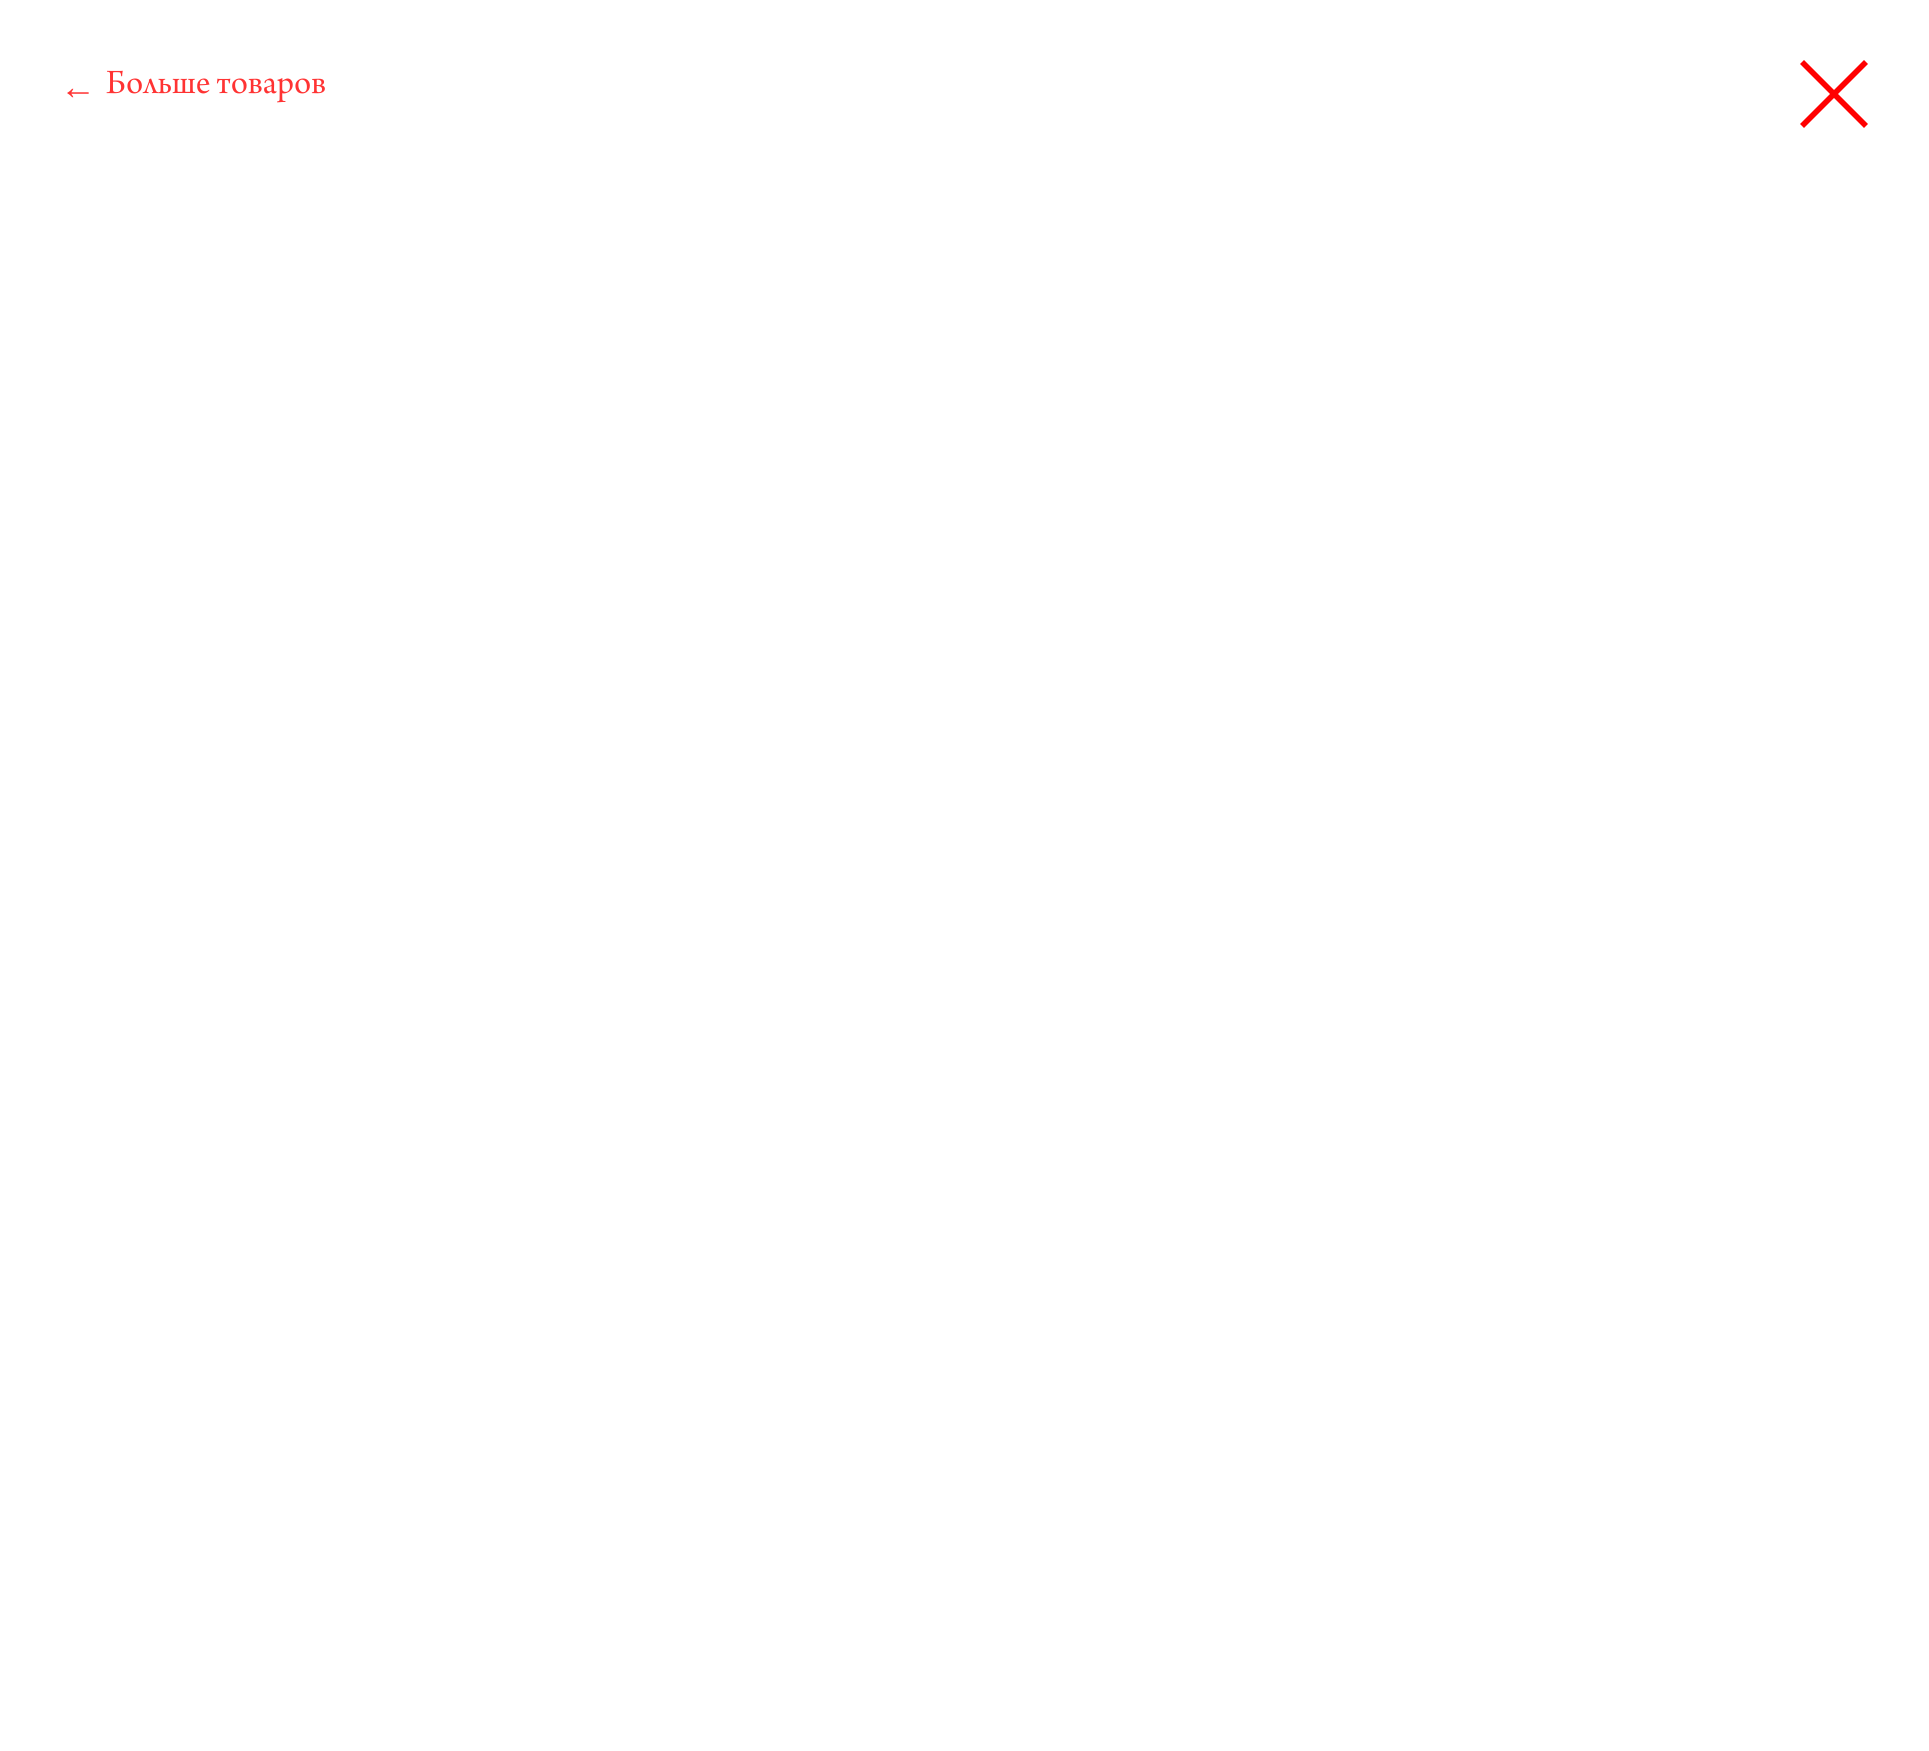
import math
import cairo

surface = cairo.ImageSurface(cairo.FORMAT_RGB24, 1929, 1751)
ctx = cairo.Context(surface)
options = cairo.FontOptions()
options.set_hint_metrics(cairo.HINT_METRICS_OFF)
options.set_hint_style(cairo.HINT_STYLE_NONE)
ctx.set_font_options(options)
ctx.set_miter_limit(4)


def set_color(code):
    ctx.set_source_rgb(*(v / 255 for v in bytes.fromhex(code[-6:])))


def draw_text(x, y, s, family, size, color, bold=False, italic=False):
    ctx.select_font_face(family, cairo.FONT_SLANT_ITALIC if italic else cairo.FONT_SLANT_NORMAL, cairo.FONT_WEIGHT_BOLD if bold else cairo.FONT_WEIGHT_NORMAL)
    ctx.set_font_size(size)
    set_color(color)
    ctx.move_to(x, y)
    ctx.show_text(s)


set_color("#ffffff")
ctx.paint()
draw_text(60, 99, "←", "Liberation Sans", 36, "#ff3333")
draw_text(106, 93, "Больше товаров", "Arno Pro", 36, "#ff3333")
set_color("#ff0000")
ctx.set_fill_rule(cairo.FILL_RULE_EVEN_ODD)
ctx.new_path()
ctx.move_to(1800, 64)
ctx.line_to(1804, 60)
ctx.line_to(1868, 124)
ctx.line_to(1864, 128)
ctx.close_path()
ctx.fill()
ctx.new_path()
ctx.move_to(1864, 60)
ctx.line_to(1868, 64)
ctx.line_to(1804, 128)
ctx.line_to(1800, 124)
ctx.close_path()
ctx.fill()
surface.write_to_png("output.png")
